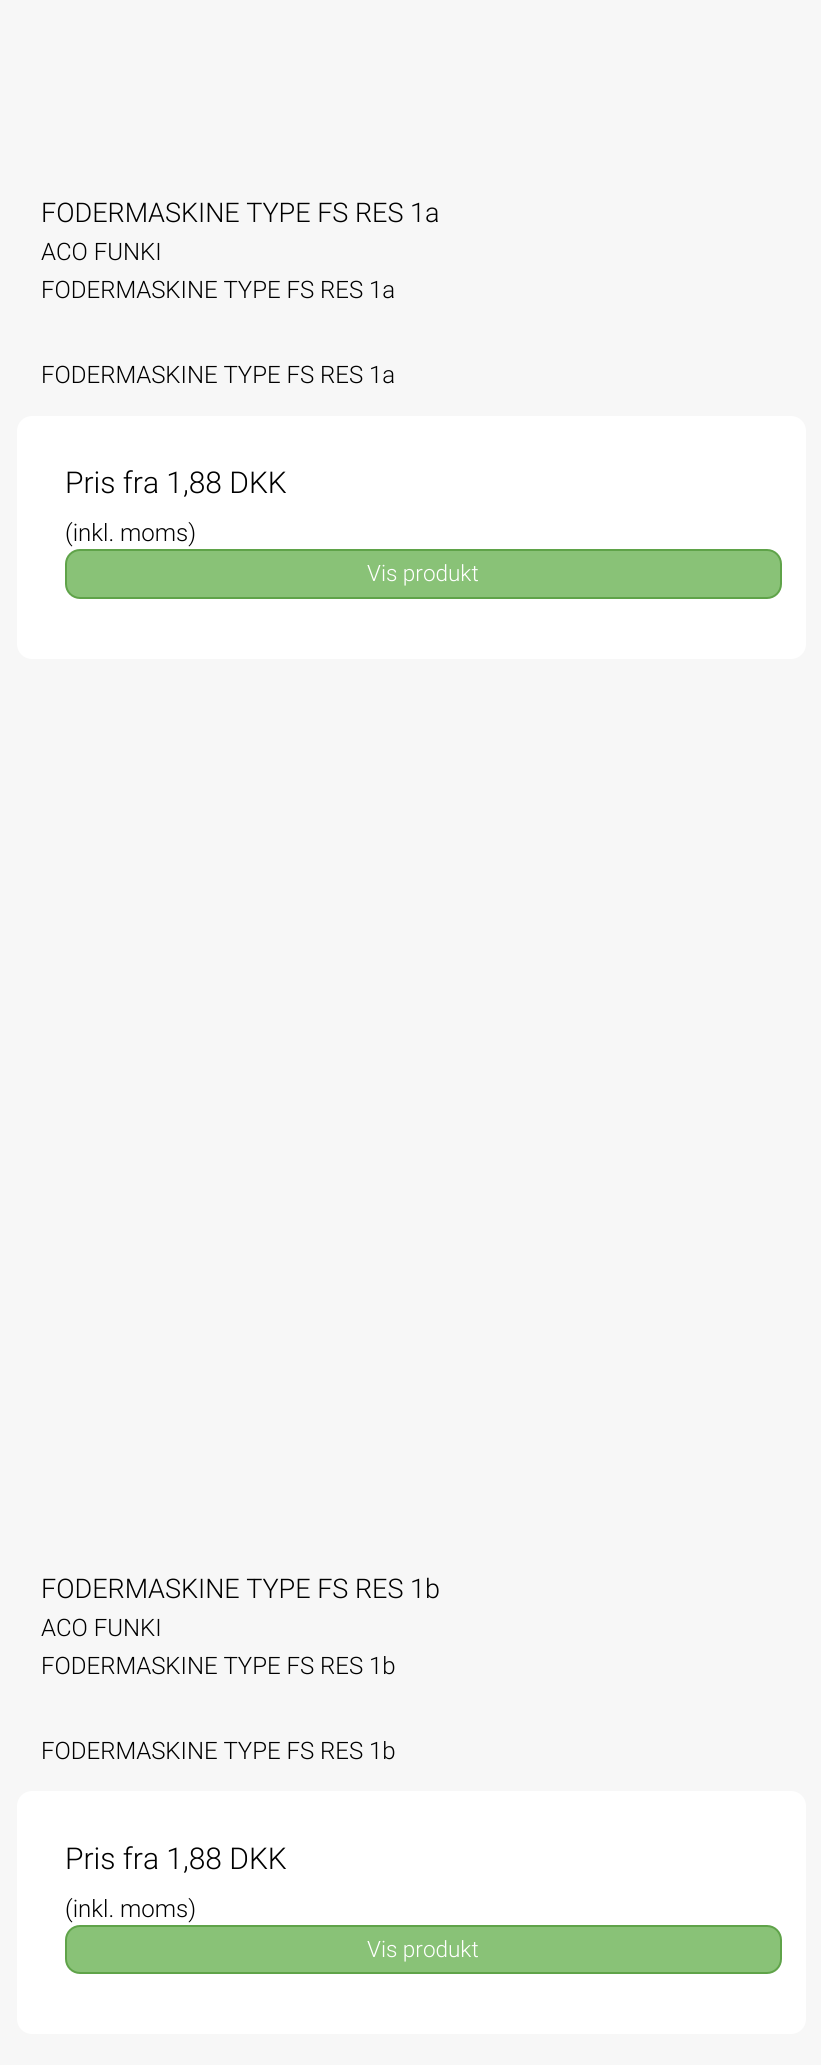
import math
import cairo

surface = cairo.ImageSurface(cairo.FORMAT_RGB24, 821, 2065)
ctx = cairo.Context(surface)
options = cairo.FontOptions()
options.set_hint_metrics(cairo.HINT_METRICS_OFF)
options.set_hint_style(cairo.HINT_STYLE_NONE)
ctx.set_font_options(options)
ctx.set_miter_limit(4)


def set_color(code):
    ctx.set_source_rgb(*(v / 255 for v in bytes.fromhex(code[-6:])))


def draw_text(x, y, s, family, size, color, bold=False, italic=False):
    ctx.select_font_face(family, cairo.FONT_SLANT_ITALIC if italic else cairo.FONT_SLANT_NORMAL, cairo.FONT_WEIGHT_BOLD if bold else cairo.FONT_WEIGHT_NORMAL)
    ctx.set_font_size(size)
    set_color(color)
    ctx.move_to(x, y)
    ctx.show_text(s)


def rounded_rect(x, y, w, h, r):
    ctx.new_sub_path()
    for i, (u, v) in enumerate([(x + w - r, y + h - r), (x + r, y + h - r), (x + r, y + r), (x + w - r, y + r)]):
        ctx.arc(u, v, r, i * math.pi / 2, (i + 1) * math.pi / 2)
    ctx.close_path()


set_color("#f7f7f7")
ctx.paint()
draw_text(41, 222, "FODERMASKINE TYPE FS RES 1a", "Roboto Light", 27, "#000000")
draw_text(41, 260, "ACO FUNKI", "Roboto Light", 24, "#000000")
draw_text(41, 298, "FODERMASKINE TYPE FS RES 1a", "Roboto Light", 24, "#000000")
draw_text(41, 383, "FODERMASKINE TYPE FS RES 1a", "Roboto Light", 24, "#000000")
set_color("#ffffff")
rounded_rect(17, 416, 789, 243, 15)
ctx.fill()
draw_text(65, 493, "Pris fra 1,88 DKK", "Roboto Light", 30, "#000000")
draw_text(65, 541, "(inkl. moms)", "Roboto Light", 24, "#000000")
set_color("#89c277")
rounded_rect(66, 550, 715, 48, 14)
ctx.fill_preserve()
set_color("#5fa349")
ctx.stroke()
draw_text(367, 581, "Vis produkt", "Roboto Light", 22.5, "#ffffff")
draw_text(41, 1598, "FODERMASKINE TYPE FS RES 1b", "Roboto Light", 27, "#000000")
draw_text(41, 1636, "ACO FUNKI", "Roboto Light", 24, "#000000")
draw_text(41, 1674, "FODERMASKINE TYPE FS RES 1b", "Roboto Light", 24, "#000000")
draw_text(41, 1759, "FODERMASKINE TYPE FS RES 1b", "Roboto Light", 24, "#000000")
set_color("#ffffff")
rounded_rect(17, 1791, 789, 243, 15)
ctx.fill()
draw_text(65, 1869, "Pris fra 1,88 DKK", "Roboto Light", 30, "#000000")
draw_text(65, 1917, "(inkl. moms)", "Roboto Light", 24, "#000000")
set_color("#89c277")
rounded_rect(66, 1926, 715, 47, 14)
ctx.fill_preserve()
set_color("#5fa349")
ctx.stroke()
draw_text(367, 1957, "Vis produkt", "Roboto Light", 22.5, "#ffffff")
surface.write_to_png("output.png")
